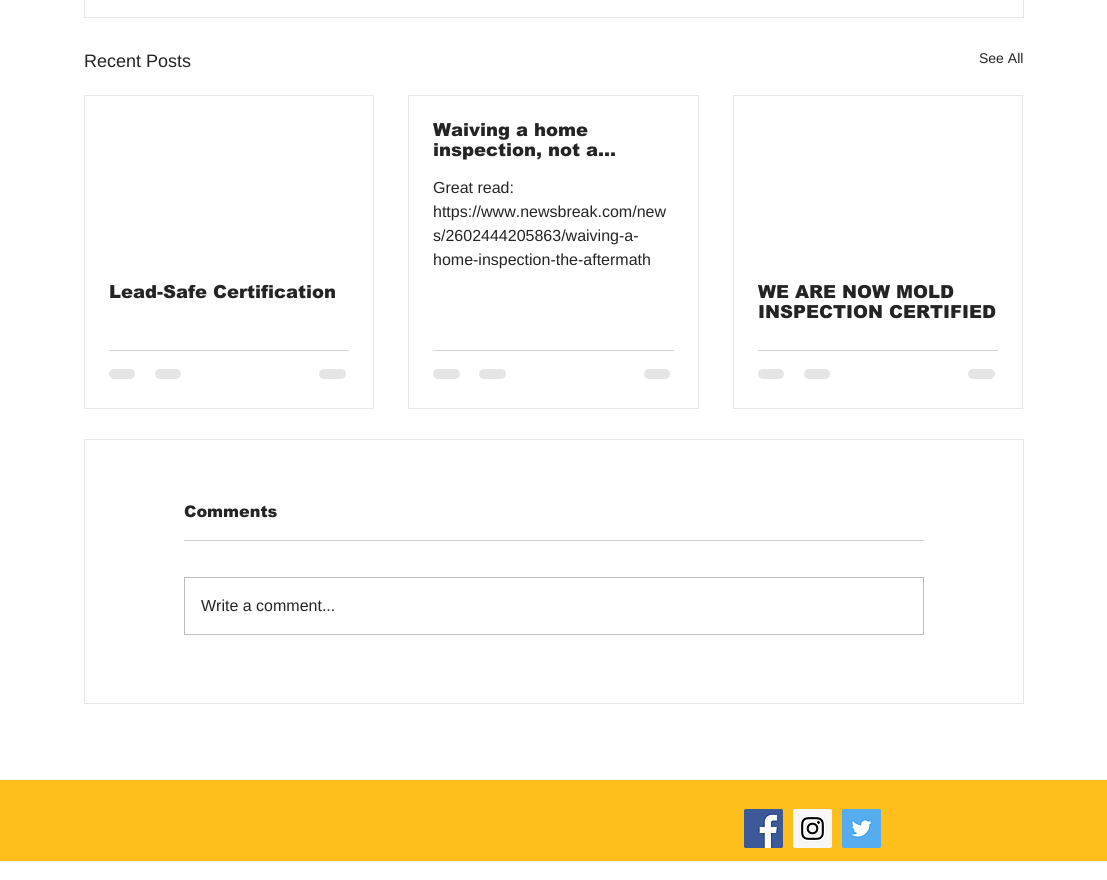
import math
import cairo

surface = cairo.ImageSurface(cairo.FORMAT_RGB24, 1107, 880)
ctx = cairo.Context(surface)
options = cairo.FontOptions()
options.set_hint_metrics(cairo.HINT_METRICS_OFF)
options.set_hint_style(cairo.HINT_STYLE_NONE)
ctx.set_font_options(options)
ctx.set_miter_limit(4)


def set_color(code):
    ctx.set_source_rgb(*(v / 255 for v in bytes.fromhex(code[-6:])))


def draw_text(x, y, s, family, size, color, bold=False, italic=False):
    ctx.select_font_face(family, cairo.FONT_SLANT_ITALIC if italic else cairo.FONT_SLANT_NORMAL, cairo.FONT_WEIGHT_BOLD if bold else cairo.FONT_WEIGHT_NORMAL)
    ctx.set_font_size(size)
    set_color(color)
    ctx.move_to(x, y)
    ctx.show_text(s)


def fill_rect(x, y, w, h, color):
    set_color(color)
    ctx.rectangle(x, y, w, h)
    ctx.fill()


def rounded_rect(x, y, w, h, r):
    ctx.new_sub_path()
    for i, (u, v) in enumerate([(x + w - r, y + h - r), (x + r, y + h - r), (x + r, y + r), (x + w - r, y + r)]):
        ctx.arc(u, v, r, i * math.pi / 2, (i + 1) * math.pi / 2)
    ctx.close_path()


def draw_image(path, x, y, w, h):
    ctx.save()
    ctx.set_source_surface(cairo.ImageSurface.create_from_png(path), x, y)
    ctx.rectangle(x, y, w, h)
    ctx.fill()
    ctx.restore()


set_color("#ffffff")
ctx.paint()
ctx.rectangle(84.5, -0.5, 939, 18)
set_color("#e8e6e6")
ctx.set_line_width(1)
ctx.stroke()
draw_text(84, 67, "Recent Posts", "Liberation Sans", 18, "#252424")
draw_text(979, 63, "See All", "Liberation Sans", 14, "#252424")
ctx.rectangle(408.5, 95.5, 290, 313)
set_color("#e8e6e6")
ctx.stroke()
draw_text(433, 136, "Waiving a home", "arial Black", 18, "#252424")
draw_text(433, 156, "inspection, not a…", "arial Black", 18, "#252424")
draw_text(433, 193, "Great read:", "Liberation Sans", 16, "#252424")
draw_text(433, 217, "https://www.newsbreak.com/new", "Liberation Sans", 16, "#252424")
draw_text(433, 241, "s/2602444205863/waiving-a-", "Liberation Sans", 16, "#252424")
draw_text(433, 265, "home-inspection-the-aftermath", "Liberation Sans", 16, "#252424")
fill_rect(433, 350, 241, 1, "#d3d3d3")
set_color("#e5e5e5")
rounded_rect(433, 369, 27, 10, 5)
ctx.fill()
rounded_rect(479, 369, 27, 10, 5)
ctx.fill()
rounded_rect(644, 369, 26, 10, 5)
ctx.fill()
ctx.rectangle(84.5, 95.5, 289, 313)
set_color("#e8e6e6")
ctx.stroke()
draw_text(109, 298, "Lead-Safe Certification", "arial Black", 18, "#252424")
fill_rect(109, 350, 240, 1, "#d3d3d3")
set_color("#e5e5e5")
rounded_rect(109, 369, 26, 10, 5)
ctx.fill()
rounded_rect(155, 369, 26, 10, 5)
ctx.fill()
rounded_rect(319, 369, 27, 10, 5)
ctx.fill()
ctx.rectangle(733.5, 95.5, 289, 313)
set_color("#e8e6e6")
ctx.stroke()
draw_text(758, 298, "WE ARE NOW MOLD", "arial Black", 18, "#252424")
draw_text(758, 318, "INSPECTION CERTIFIED", "arial Black", 18, "#252424")
fill_rect(758, 350, 240, 1, "#d3d3d3")
set_color("#e5e5e5")
rounded_rect(758, 369, 26, 10, 5)
ctx.fill()
rounded_rect(804, 369, 26, 10, 5)
ctx.fill()
rounded_rect(968, 369, 27, 10, 5)
ctx.fill()
ctx.rectangle(84.5, 439.5, 939, 264)
set_color("#e8e6e6")
ctx.stroke()
draw_text(184, 517, "Comments", "arial Black", 16, "#252424")
fill_rect(184, 540, 740, 1, "#d3d3d3")
ctx.rectangle(184.5, 577.5, 739, 57)
set_color("#bebdbd")
ctx.stroke()
draw_text(201, 611, "Write a comment...", "Liberation Sans", 16, "#252424")
fill_rect(0, 780, 1107, 81, "#ffbe1c")
draw_image("assets/img1.png", 744, 809, 39, 39)
draw_image("assets/img2.png", 793, 809, 39, 39)
draw_image("assets/img3.png", 842, 809, 39, 39)
surface.write_to_png("output.png")
